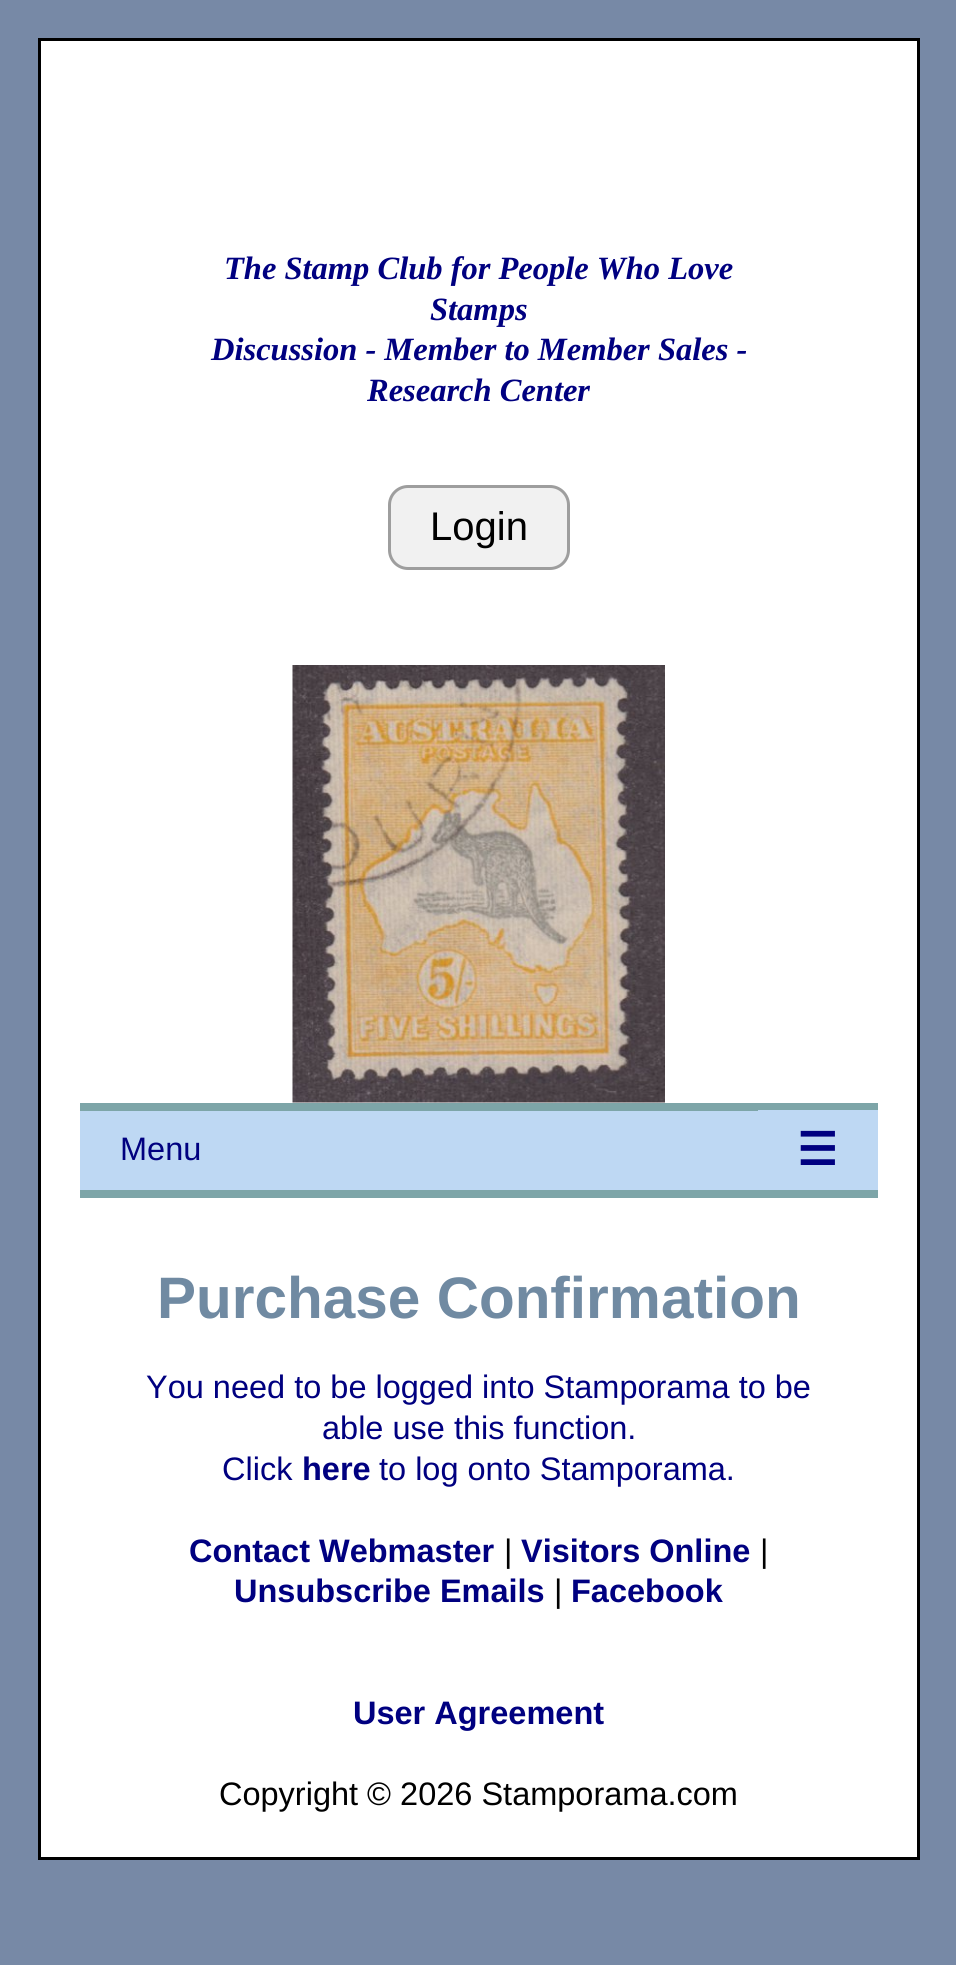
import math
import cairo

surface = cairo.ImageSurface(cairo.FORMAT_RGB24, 956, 1965)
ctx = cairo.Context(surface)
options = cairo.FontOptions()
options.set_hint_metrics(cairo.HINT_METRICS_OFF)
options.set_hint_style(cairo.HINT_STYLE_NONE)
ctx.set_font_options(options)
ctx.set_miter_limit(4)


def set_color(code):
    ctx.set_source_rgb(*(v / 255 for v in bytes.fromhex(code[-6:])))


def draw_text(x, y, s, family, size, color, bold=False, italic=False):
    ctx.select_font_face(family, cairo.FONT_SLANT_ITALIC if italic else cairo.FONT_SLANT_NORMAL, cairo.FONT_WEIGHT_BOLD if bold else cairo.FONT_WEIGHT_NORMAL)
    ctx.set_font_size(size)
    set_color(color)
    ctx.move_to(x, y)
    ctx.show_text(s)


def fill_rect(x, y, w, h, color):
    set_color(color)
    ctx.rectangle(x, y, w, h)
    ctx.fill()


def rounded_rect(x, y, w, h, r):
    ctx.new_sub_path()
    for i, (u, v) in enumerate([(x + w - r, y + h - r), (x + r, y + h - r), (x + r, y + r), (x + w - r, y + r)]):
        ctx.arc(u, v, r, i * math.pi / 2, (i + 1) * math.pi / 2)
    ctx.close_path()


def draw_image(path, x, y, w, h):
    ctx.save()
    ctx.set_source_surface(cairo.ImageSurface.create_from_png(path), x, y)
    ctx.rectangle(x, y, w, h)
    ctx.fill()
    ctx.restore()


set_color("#7789a6")
ctx.paint()
set_color("#ffffff")
ctx.rectangle(39.5, 39.5, 879, 1819)
ctx.fill_preserve()
set_color("#000000")
ctx.set_line_width(3)
ctx.stroke()
draw_text(224, 279, "The Stamp Club for People Who Love", "Liberation Serif", 32.5, "#000080", bold=True, italic=True)
draw_text(430, 320, "Stamps", "Liberation Serif", 32.5, "#000080", bold=True, italic=True)
draw_text(211, 360, "Discussion - Member to Member Sales -", "Liberation Serif", 32.5, "#000080", bold=True, italic=True)
draw_text(367, 401, "Research Center", "Liberation Serif", 32.5, "#000080", bold=True, italic=True)
set_color("#f1f1f1")
rounded_rect(389.5, 486.5, 179, 82, 18.5)
ctx.fill_preserve()
set_color("#9e9e9e")
ctx.stroke()
draw_text(430, 540, "Login", "Liberation Sans", 40, "#000000")
draw_image("assets/img1.png", 292, 665, 373, 438)
fill_rect(80, 1111, 678, 79, "#bed8f3")
fill_rect(80, 1103, 798, 8, "#7da5a8")
fill_rect(80, 1190, 798, 8, "#7da5a8")
draw_text(120, 1160, "Menu", "Liberation Sans", 32.5, "#000080")
fill_rect(758, 1110, 120, 80, "#bed8f3")
draw_text(797, 1165, "☰", "DejaVu Sans", 45, "#000080", bold=True)
draw_text(157, 1318, "Purchase Confirmation", "Liberation Sans", 58.5, "#708aa2", bold=True)
draw_text(146, 1398, "You need to be logged into Stamporama to be", "Liberation Sans", 32.5, "#000080")
draw_text(322, 1439, "able use this function.", "Liberation Sans", 32.5, "#000080")
draw_text(222, 1480, "Click", "Liberation Sans", 32.5, "#000080")
draw_text(302, 1480, "here", "Liberation Sans", 32.5, "#000080", bold=True)
draw_text(379, 1480, "to log onto Stamporama.", "Liberation Sans", 32.5, "#000080")
draw_text(189, 1562, "Contact Webmaster", "Liberation Sans", 32.5, "#000080", bold=True)
draw_text(504, 1562, "|", "Liberation Sans", 32.5, "#000000")
draw_text(521, 1562, "Visitors Online", "Liberation Sans", 32.5, "#000080", bold=True)
draw_text(760, 1562, "|", "Liberation Sans", 32.5, "#000000")
draw_text(234, 1602, "Unsubscribe Emails", "Liberation Sans", 32.5, "#000080", bold=True)
draw_text(554, 1602, "|", "Liberation Sans", 32.5, "#000000")
draw_text(571, 1602, "Facebook", "Liberation Sans", 32.5, "#000080", bold=True)
draw_text(353, 1724, "User Agreement", "Liberation Sans", 32.5, "#000080", bold=True)
draw_text(219, 1805, "Copyright © 2026 Stamporama.com", "Liberation Sans", 32.5, "#000000")
surface.write_to_png("output.png")
